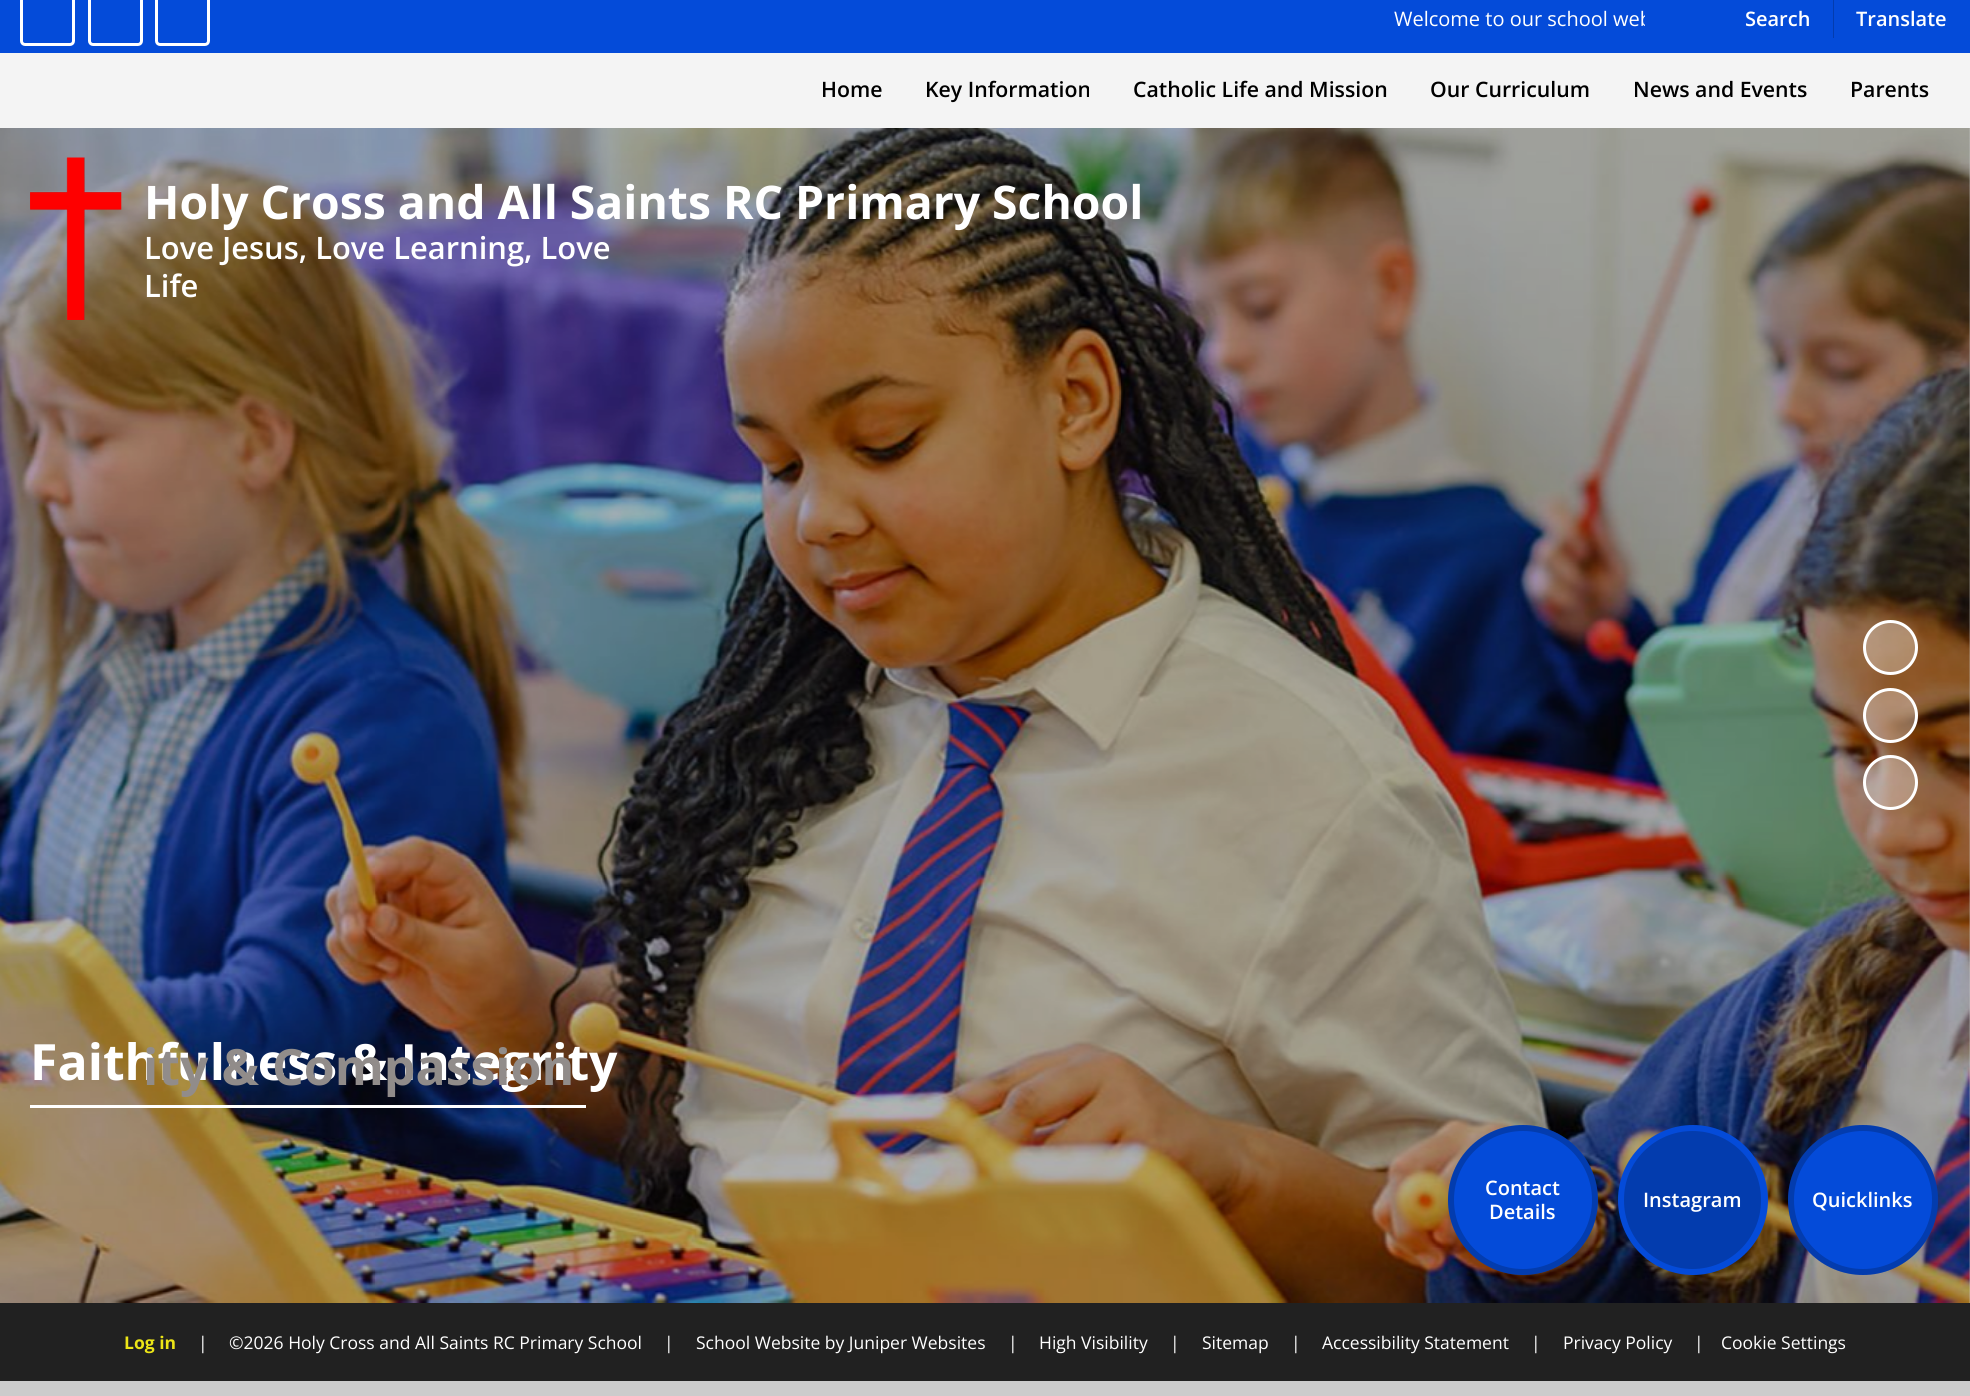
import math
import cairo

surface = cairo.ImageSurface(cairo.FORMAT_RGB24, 1970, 1396)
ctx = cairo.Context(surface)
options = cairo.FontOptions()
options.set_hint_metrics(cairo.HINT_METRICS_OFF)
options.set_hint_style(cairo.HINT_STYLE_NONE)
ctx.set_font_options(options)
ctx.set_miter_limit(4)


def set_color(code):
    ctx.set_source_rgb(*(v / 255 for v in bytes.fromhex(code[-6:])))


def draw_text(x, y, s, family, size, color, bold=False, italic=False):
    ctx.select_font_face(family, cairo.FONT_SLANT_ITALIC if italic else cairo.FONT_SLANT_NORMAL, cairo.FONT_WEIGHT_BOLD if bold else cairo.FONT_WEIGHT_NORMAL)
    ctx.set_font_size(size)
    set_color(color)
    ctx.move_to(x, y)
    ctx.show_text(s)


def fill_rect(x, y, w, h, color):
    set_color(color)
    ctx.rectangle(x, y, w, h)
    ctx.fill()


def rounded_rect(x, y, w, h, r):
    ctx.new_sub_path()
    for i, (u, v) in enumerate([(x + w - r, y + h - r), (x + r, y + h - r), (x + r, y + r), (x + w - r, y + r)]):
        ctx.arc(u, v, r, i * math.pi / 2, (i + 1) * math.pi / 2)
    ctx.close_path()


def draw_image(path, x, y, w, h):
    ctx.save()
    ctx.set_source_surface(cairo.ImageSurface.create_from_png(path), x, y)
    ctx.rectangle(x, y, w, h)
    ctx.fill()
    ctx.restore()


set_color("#cccccc")
ctx.paint()
fill_rect(0, 0, 1970, 53, "#044bd9")
rounded_rect(21.5, -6.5, 52, 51, 3.5)
set_color("#ffffff")
ctx.set_line_width(3)
ctx.stroke()
rounded_rect(89.5, -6.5, 52, 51, 3.5)
ctx.stroke()
rounded_rect(156.5, -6.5, 52, 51, 3.5)
ctx.stroke()
ctx.save()
ctx.rectangle(250, 6, 1395, 25)
ctx.clip()
draw_text(1394, 26, "Welcome to our school web", "Open Sans", 20, "#ffffff")
ctx.restore()
draw_image("assets/img1.png", 0, 128, 1970, 1175)
ctx.set_source_rgba(1, 1, 1, 0.3)
ctx.arc(1890.5, 647.5, 26, 0, 2 * math.pi)
ctx.fill_preserve()
set_color("#ffffff")
ctx.stroke()
ctx.set_source_rgba(1, 1, 1, 0.3)
ctx.arc(1890.5, 715.5, 26, 0, 2 * math.pi)
ctx.fill_preserve()
set_color("#ffffff")
ctx.stroke()
ctx.set_source_rgba(1, 1, 1, 0.3)
ctx.arc(1890.5, 782.5, 26, 0, 2 * math.pi)
ctx.fill_preserve()
set_color("#ffffff")
ctx.stroke()
draw_text(30, 1080, "Faithfulness & Integrity", "Open Sans", 50, "#ffffff", bold=True)
draw_text(143, 1085, "ity & Compassion", "Open Sans", 50, "#918c8a", bold=True)
fill_rect(30, 1105, 556, 3, "#ffffff")
set_color("#044bd9")
ctx.new_path()
ctx.arc(1523, 1200, 75, 0, 2 * math.pi)
ctx.fill()
ctx.arc(1523, 1200, 72, 0, 2 * math.pi)
ctx.set_source_rgba(0, 0, 0, 0.2)
ctx.set_line_width(6)
ctx.stroke()
draw_text(1485, 1195, "Contact", "Open Sans SemiBold", 20, "#ffffff")
draw_text(1489, 1219, "Details", "Open Sans SemiBold", 20, "#ffffff")
set_color("#044bd9")
ctx.new_path()
ctx.arc(1693, 1200, 75, 0, 2 * math.pi)
ctx.fill()
set_color("#033cae")
rounded_rect(1624, 1131, 137, 138, 68.5)
ctx.fill()
draw_text(1643, 1207, "Instagram", "Open Sans SemiBold", 20, "#ffffff")
set_color("#044bd9")
ctx.new_path()
ctx.arc(1863, 1200, 75, 0, 2 * math.pi)
ctx.fill()
ctx.arc(1863, 1200, 72, 0, 2 * math.pi)
ctx.set_source_rgba(0, 0, 0, 0.2)
ctx.stroke()
draw_text(1812, 1207, "Quicklinks", "Open Sans SemiBold", 20, "#ffffff")
draw_text(1745, 26, "Search", "Open Sans SemiBold", 20, "#ffffff")
fill_rect(1833, 0, 1, 38, "#033cae")
draw_text(1856, 26, "Translate", "Open Sans SemiBold", 20, "#ffffff")
fill_rect(0, 53, 1970, 75, "#f4f4f4")
draw_text(821, 97, "Home", "Open Sans SemiBold", 21.25, "#000000")
draw_text(925, 97, "Key Information", "Open Sans SemiBold", 21.25, "#000000")
draw_text(1133, 97, "Catholic Life and Mission", "Open Sans SemiBold", 21.25, "#000000")
draw_text(1430, 97, "Our Curriculum", "Open Sans SemiBold", 21.25, "#000000")
draw_text(1633, 97, "News and Events", "Open Sans SemiBold", 21.25, "#000000")
draw_text(1850, 97, "Parents", "Open Sans SemiBold", 21.25, "#000000")
draw_image("assets/img2.png", 30, 157, 92, 163)
draw_text(144, 219, "Holy Cross and All Saints RC Primary School", "Open Sans", 46.3, "#ffffff", bold=True)
draw_text(144, 259, "Love Jesus, Love Learning, Love", "Open Sans SemiBold", 30.9, "#ffffff")
draw_text(144, 297, "Life", "Open Sans SemiBold", 30.9, "#ffffff")
fill_rect(0, 1303, 1970, 78, "#212121")
draw_text(124, 1349, "Log in", "Open Sans", 17.5, "#ece517", bold=True)
draw_text(198, 1349, "|", "Open Sans", 17.5, "#ffffff")
draw_text(229, 1349, "©2026 Holy Cross and All Saints RC Primary School", "Open Sans", 17.5, "#ffffff")
draw_text(664, 1349, "|", "Open Sans", 17.5, "#ffffff")
draw_text(696, 1349, "School Website by Juniper Websites", "Open Sans", 17.5, "#ffffff")
draw_text(1008, 1349, "|", "Open Sans", 17.5, "#ffffff")
draw_text(1039, 1349, "High Visibility", "Open Sans", 17.5, "#ffffff")
draw_text(1170, 1349, "|", "Open Sans", 17.5, "#ffffff")
draw_text(1202, 1349, "Sitemap", "Open Sans", 17.5, "#ffffff")
draw_text(1291, 1349, "|", "Open Sans", 17.5, "#ffffff")
draw_text(1322, 1349, "Accessibility Statement", "Open Sans", 17.5, "#ffffff")
draw_text(1531, 1349, "|", "Open Sans", 17.5, "#ffffff")
draw_text(1563, 1349, "Privacy Policy", "Open Sans", 17.5, "#ffffff")
draw_text(1694, 1349, "|", "Open Sans", 17.5, "#ffffff")
draw_text(1721, 1349, "Cookie Settings", "Open Sans", 17.5, "#ffffff")
surface.write_to_png("output.png")
